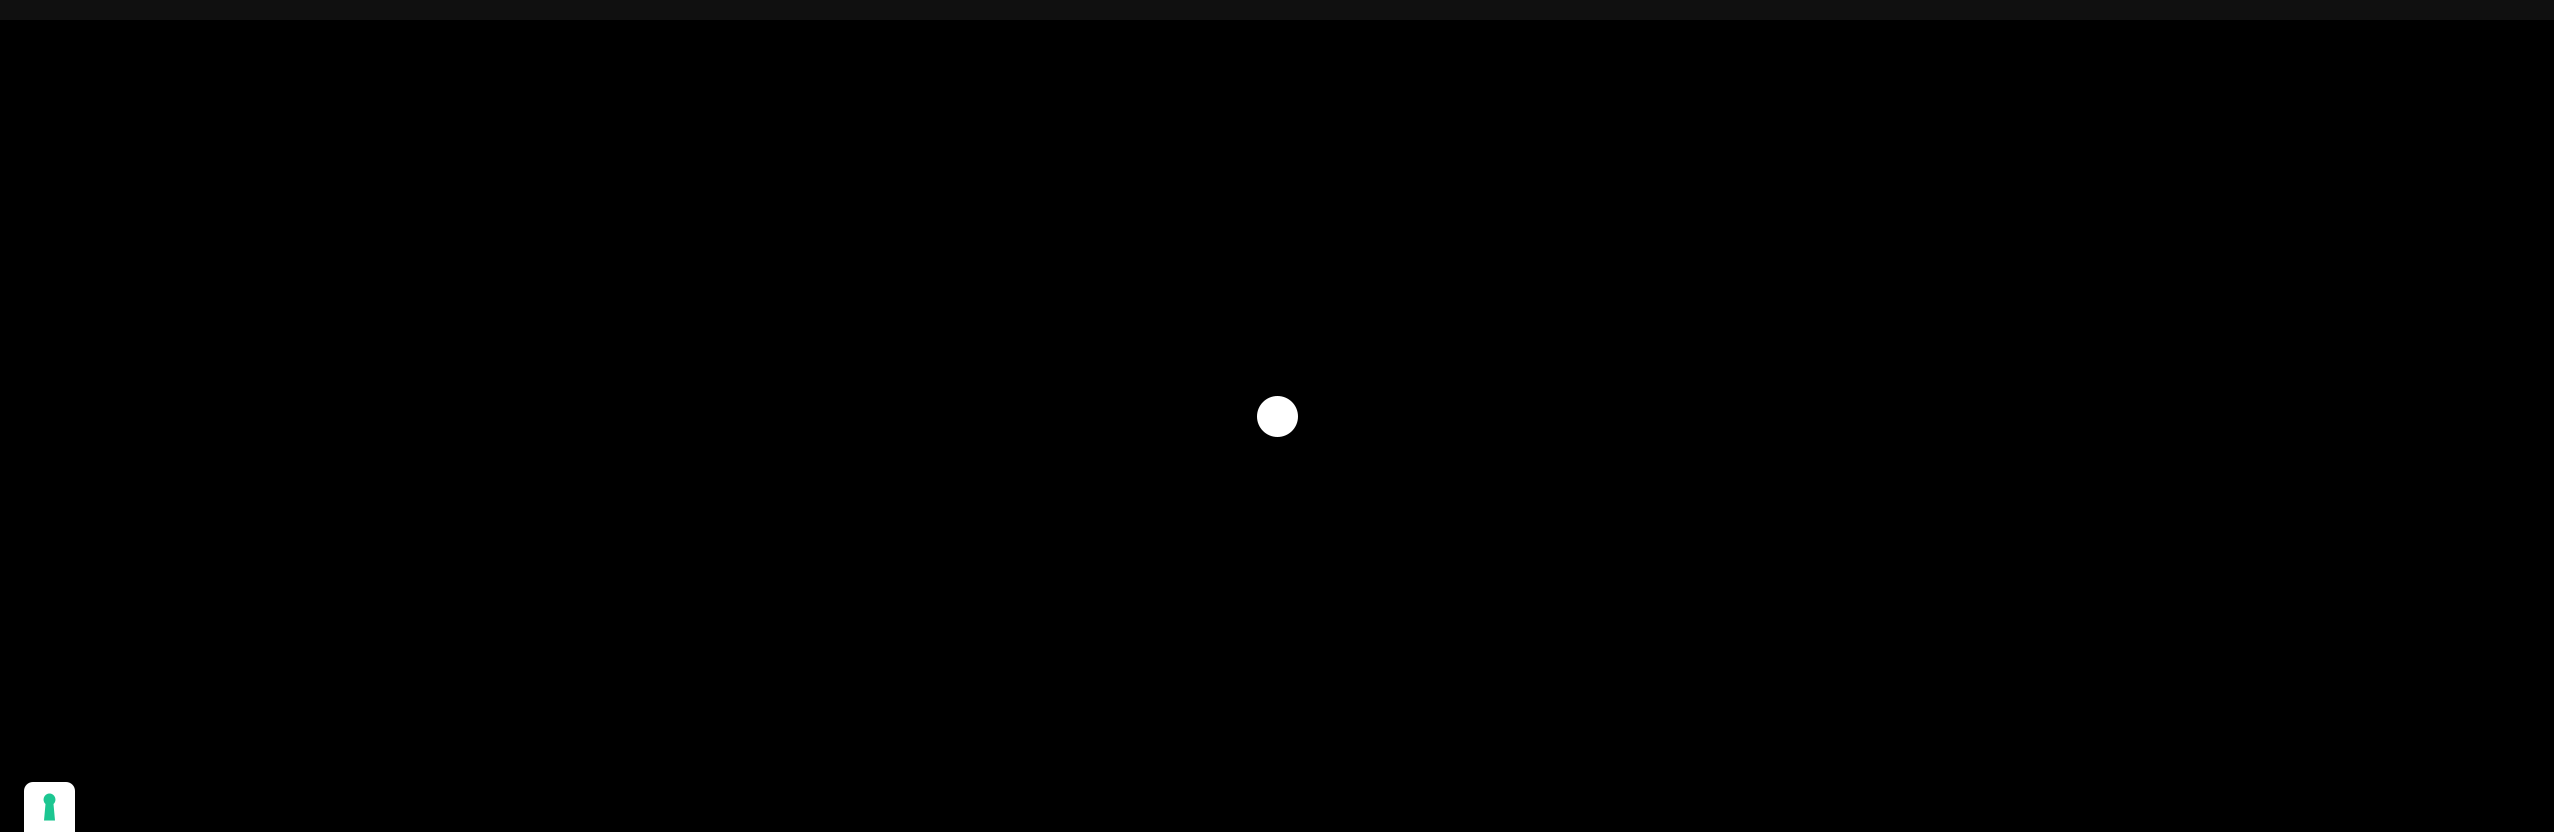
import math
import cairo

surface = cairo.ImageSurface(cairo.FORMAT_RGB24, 2554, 832)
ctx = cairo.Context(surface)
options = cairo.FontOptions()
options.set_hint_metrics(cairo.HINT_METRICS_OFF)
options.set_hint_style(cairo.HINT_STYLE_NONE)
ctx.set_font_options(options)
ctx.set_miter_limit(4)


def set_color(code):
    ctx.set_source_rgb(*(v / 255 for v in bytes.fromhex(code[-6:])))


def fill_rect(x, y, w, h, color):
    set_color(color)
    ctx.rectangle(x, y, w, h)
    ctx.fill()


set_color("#101010")
ctx.paint()
fill_rect(0, 20, 2554, 812, "#000000")
set_color("#ffffff")
ctx.arc(1277.5, 416.5, 20.5, 0, 2 * math.pi)
ctx.fill()
ctx.new_path()
ctx.move_to(33, 782)
ctx.line_to(66, 782)
ctx.curve_to(71, 782, 75, 786, 75, 791)
ctx.line_to(75, 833)
ctx.line_to(24, 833)
ctx.line_to(24, 791)
ctx.curve_to(24, 786, 28, 782, 33, 782)
ctx.close_path()
ctx.fill()
set_color("#1cc691")
ctx.set_fill_rule(cairo.FILL_RULE_EVEN_ODD)
ctx.new_path()
ctx.move_to(49.5, 793.5)
ctx.curve_to(55, 793.5, 57.5, 800.5, 53.5, 804)
ctx.line_to(55, 820.5)
ctx.line_to(44, 820.5)
ctx.line_to(45.5, 804)
ctx.curve_to(41.5, 800.5, 44, 793.5, 49.5, 793.5)
ctx.close_path()
ctx.fill()
surface.write_to_png("output.png")
